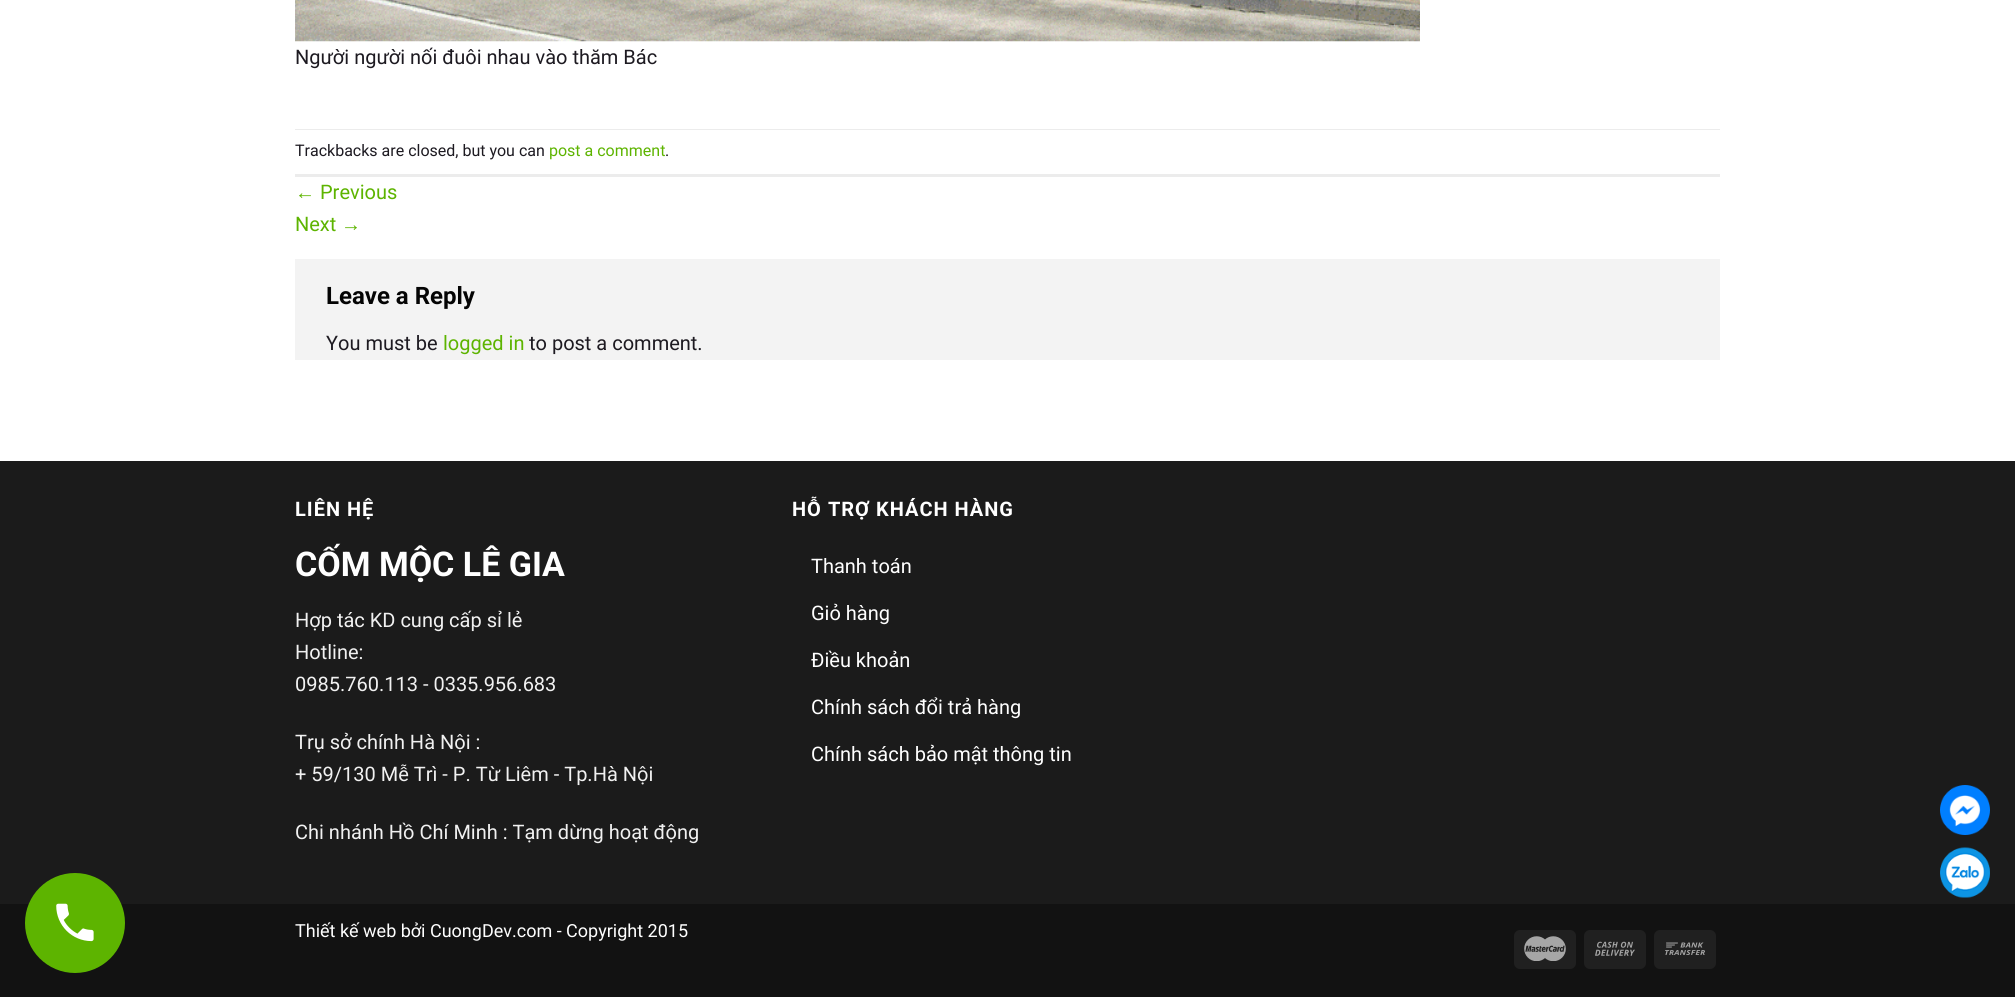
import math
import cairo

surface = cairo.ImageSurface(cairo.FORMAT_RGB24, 2015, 997)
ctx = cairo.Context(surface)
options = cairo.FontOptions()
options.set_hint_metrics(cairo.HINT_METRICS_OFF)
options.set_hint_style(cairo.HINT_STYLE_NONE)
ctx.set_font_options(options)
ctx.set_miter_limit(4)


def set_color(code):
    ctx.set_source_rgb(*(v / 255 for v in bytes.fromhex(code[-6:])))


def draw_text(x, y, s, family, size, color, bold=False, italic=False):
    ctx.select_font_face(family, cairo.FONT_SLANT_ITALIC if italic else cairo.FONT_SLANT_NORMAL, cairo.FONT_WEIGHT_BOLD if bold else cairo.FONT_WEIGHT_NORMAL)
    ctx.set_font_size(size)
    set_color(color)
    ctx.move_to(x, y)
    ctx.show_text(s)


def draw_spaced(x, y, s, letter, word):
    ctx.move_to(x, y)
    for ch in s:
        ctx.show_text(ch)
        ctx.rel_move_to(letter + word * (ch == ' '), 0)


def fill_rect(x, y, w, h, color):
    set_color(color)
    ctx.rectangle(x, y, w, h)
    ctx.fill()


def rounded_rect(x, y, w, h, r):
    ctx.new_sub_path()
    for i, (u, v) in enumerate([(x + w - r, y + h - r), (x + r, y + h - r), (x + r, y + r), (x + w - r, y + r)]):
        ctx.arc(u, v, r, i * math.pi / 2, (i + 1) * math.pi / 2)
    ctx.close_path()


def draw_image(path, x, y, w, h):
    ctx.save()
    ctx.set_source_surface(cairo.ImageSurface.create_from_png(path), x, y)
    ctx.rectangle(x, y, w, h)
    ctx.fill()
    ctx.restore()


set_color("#ffffff")
ctx.paint()
draw_image("assets/img1.png", 295, 0, 1125, 42)
draw_text(295, 64, "Người người nối đuôi nhau vào thăm Bác", "Roboto", 20, "#1d1a21")
fill_rect(295, 129, 1425, 1, "#ececec")
fill_rect(295, 174, 1425, 3, "#ececec")
draw_text(295, 156, "Trackbacks are closed, but you can", "Roboto", 16, "#1d1a21")
draw_text(549, 156, "post a comment", "Roboto", 16, "#5db400")
draw_text(665, 156, ".", "Roboto", 16, "#1d1a21")
draw_text(295, 199, "←", "Liberation Sans", 20, "#5db400")
draw_text(320, 199, "Previous", "Roboto", 20, "#5db400")
draw_text(295, 231, "Next", "Roboto", 20, "#5db400")
draw_text(341, 231, "→", "Liberation Sans", 20, "#5db400")
fill_rect(295, 259, 1425, 101, "#f3f3f3")
draw_text(326, 304, "Leave a Reply", "Roboto", 24, "#040404", bold=True)
draw_text(326, 350, "You must be", "Roboto", 20, "#1d1a21")
draw_text(443, 350, "logged in", "Roboto", 20, "#5db400")
draw_text(529, 350, "to post a comment.", "Roboto", 20, "#1d1a21")
fill_rect(0, 461, 2015, 443, "#1b1b1b")
ctx.select_font_face("Roboto", cairo.FONT_SLANT_NORMAL, cairo.FONT_WEIGHT_BOLD)
set_color("#ffffff")
draw_spaced(295, 516, "LIÊN HỆ", 1, 0)
draw_text(295, 576, "CỐM MỘC LÊ GIA", "Roboto", 34, "#ffffff", bold=True)
draw_text(295, 627, "Hợp tác KD cung cấp sỉ lẻ", "Roboto", 20, "#f1f1f1")
draw_text(295, 659, "Hotline:", "Roboto", 20, "#f1f1f1")
draw_text(295, 691, "0985.760.113 - 0335.956.683", "Roboto", 20, "#f1f1f1")
draw_text(295, 749, "Trụ sở chính Hà Nội :", "Roboto", 20, "#f1f1f1")
draw_text(295, 781, "+ 59/130 Mễ Trì - P. Từ Liêm - Tp.Hà Nội", "Roboto", 20, "#f1f1f1")
draw_text(295, 839, "Chi nhánh Hồ Chí Minh : Tạm dừng hoạt động", "Roboto", 20, "#f1f1f1")
ctx.select_font_face("Roboto", cairo.FONT_SLANT_NORMAL, cairo.FONT_WEIGHT_BOLD)
set_color("#ffffff")
draw_spaced(792, 516, "HỖ TRỢ KHÁCH HÀNG", 1, 0)
draw_text(811, 573, "Thanh toán", "Roboto", 20, "#ffffff")
draw_text(811, 620, "Giỏ hàng", "Roboto", 20, "#ffffff")
draw_text(811, 667, "Điều khoản", "Roboto", 20, "#ffffff")
draw_text(811, 714, "Chính sách đổi trả hàng", "Roboto", 20, "#ffffff")
draw_text(811, 761, "Chính sách bảo mật thông tin", "Roboto", 20, "#ffffff")
fill_rect(0, 904, 2015, 93, "#121212")
draw_text(295, 937, "Thiết kế web bởi CuongDev.com - Copyright 2015", "Roboto", 18, "#ffffff")
set_color("#202020")
rounded_rect(1514, 930, 62, 39, 6)
ctx.fill()
draw_image("assets/img2.png", 1524, 936, 42, 25)
rounded_rect(1584, 930, 62, 39, 6)
ctx.fill()
draw_image("assets/img3.png", 1595, 941, 40, 15)
rounded_rect(1654, 930, 62, 39, 6)
ctx.fill()
draw_image("assets/img4.png", 1665, 942, 40, 13)
draw_image("assets/img5.png", 1940, 785, 50, 50)
draw_image("assets/img6.png", 1940, 847, 50, 51)
set_color("#5db400")
ctx.arc(75, 923, 50, 0, 2 * math.pi)
ctx.fill()
draw_image("assets/img7.png", 56, 903, 38, 39)
surface.write_to_png("output.png")
